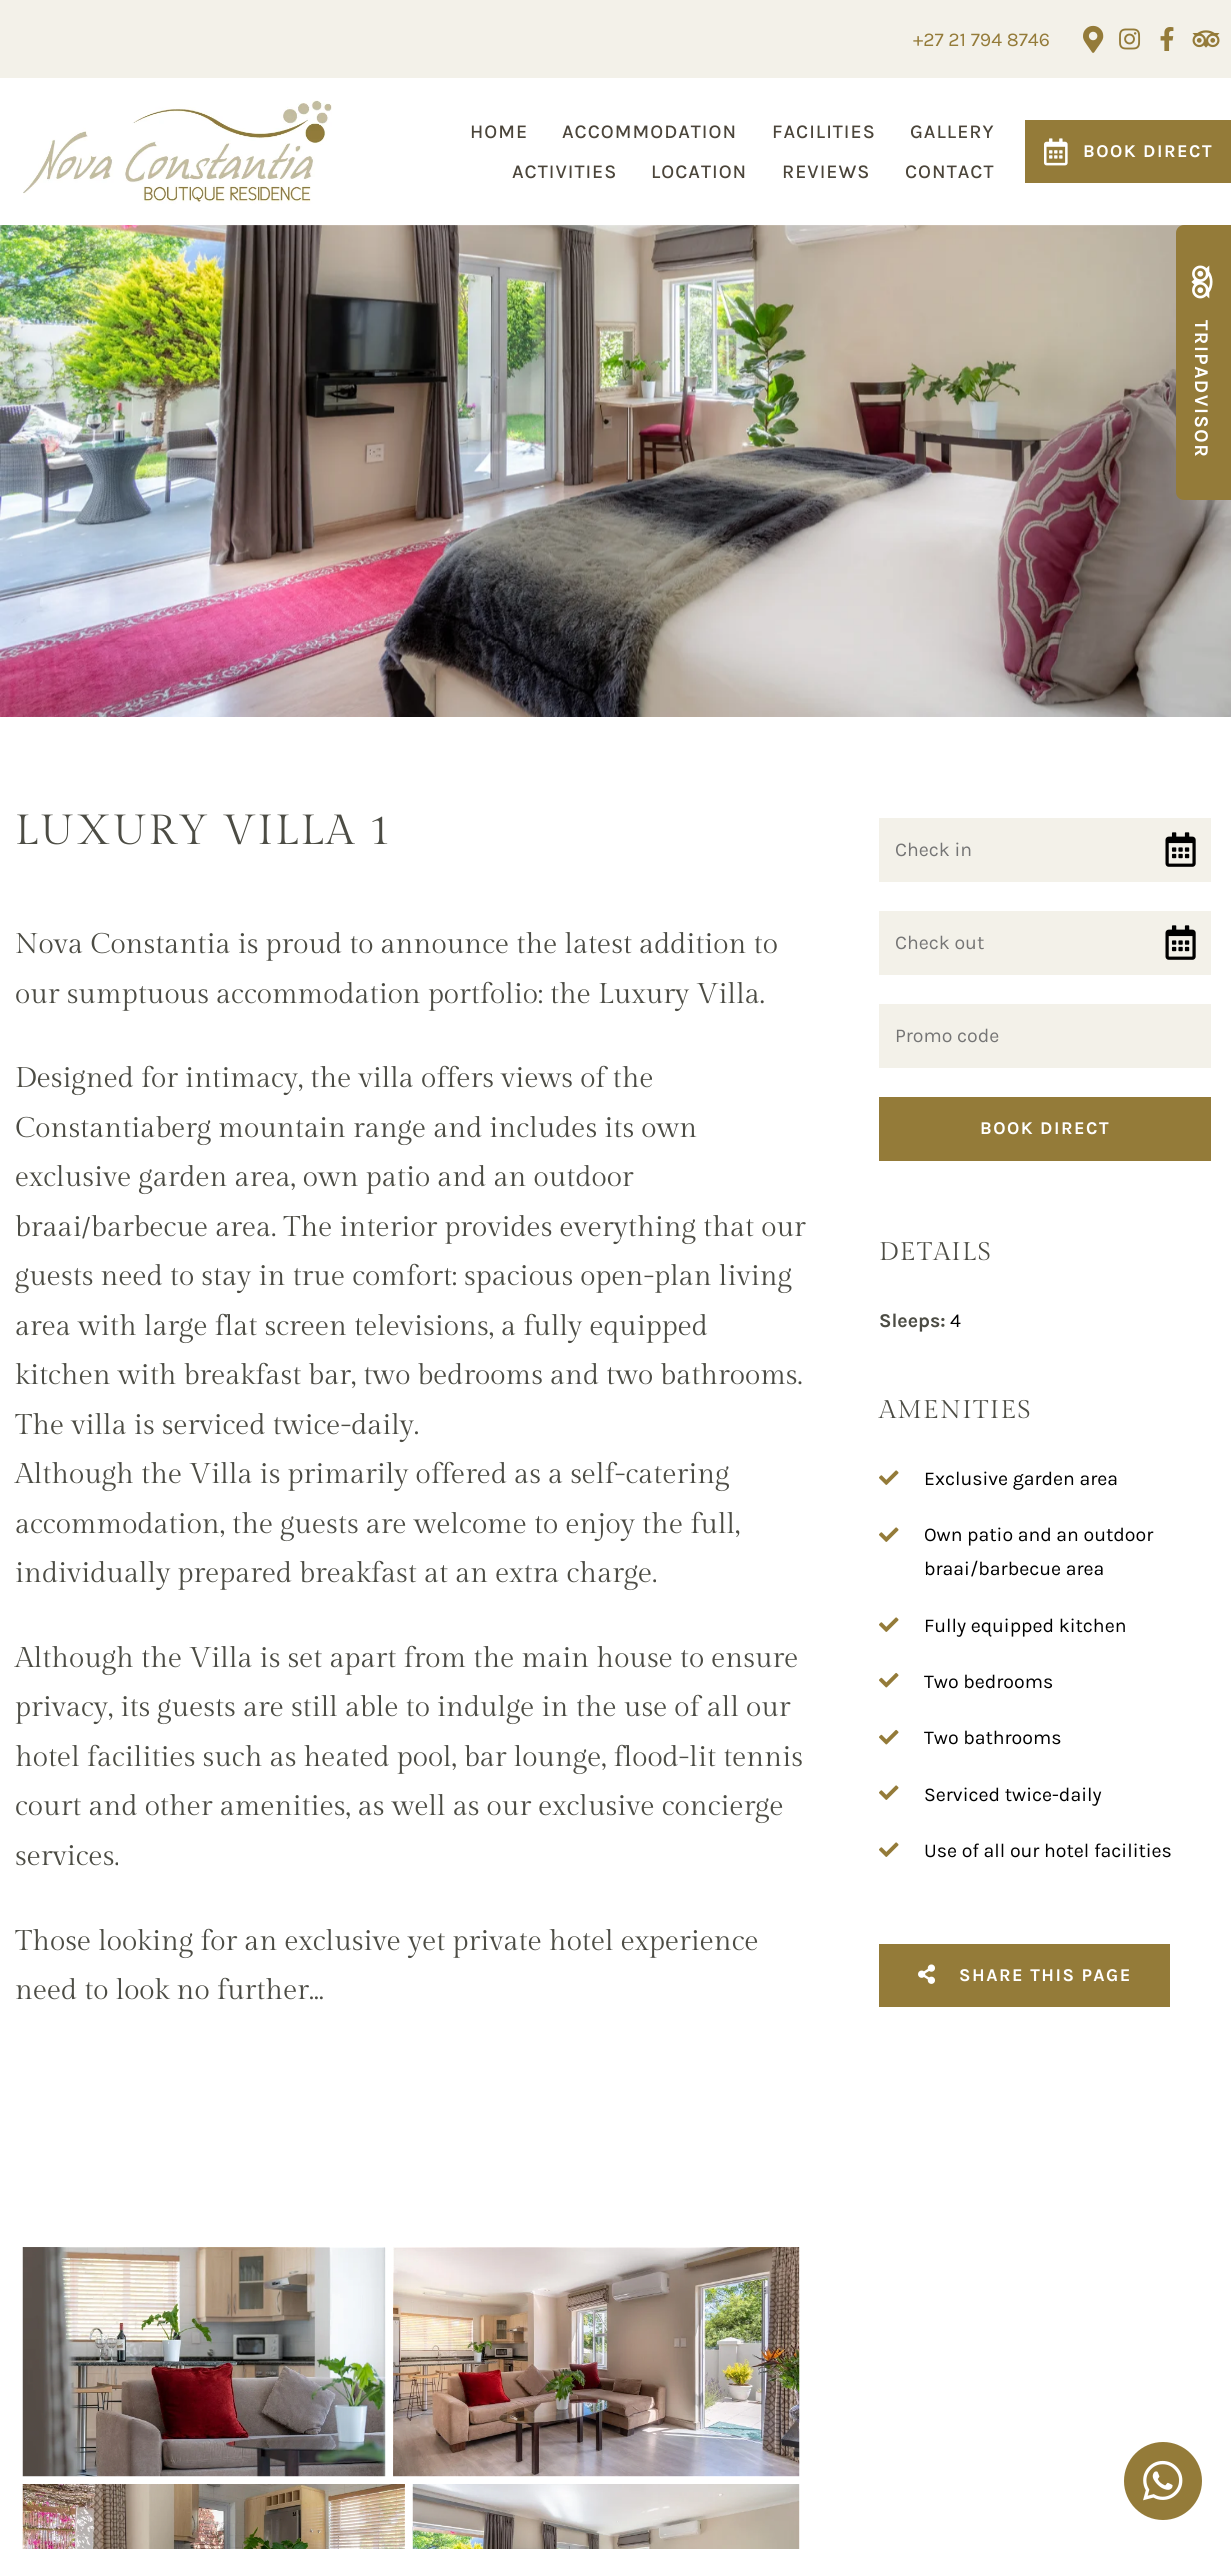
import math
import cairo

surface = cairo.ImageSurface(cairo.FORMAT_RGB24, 1231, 2549)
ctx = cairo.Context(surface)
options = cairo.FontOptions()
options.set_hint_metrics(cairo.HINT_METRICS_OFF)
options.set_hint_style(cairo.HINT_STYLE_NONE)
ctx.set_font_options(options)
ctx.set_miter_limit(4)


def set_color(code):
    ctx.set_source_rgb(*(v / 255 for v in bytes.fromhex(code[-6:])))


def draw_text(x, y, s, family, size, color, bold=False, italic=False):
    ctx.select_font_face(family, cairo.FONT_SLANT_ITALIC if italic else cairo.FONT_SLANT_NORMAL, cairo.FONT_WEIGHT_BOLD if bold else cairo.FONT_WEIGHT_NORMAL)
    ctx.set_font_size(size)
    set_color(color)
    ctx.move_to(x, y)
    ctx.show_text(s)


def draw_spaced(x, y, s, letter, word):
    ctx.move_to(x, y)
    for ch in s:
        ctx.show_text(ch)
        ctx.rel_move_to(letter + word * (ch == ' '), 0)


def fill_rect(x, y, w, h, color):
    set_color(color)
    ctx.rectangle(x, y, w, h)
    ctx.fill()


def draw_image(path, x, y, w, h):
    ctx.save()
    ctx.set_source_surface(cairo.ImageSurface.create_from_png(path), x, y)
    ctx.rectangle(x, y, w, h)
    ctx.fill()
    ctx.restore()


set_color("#ffffff")
ctx.paint()
fill_rect(0, 0, 1231, 78, "#f3f1e9")
draw_text(913, 46, "+27 21 794 8746", "Karla", 19.5, "#947b39")
draw_image("assets/img1.png", 1083, 25, 21, 28)
draw_image("assets/img2.png", 1119, 28, 22, 22)
draw_image("assets/img3.png", 1160, 27, 14, 24)
draw_image("assets/img4.png", 1192, 30, 28, 18)
draw_image("assets/img5.png", 23, 100, 309, 104)
ctx.select_font_face("Karla Medium")
set_color("#4b453a")
draw_spaced(470, 138, "HOME", 1, 0)
draw_spaced(562, 138, "ACCOMMODATION", 1, 0)
draw_spaced(772, 138, "FACILITIES", 1, 0)
draw_spaced(910, 138, "GALLERY", 1, 0)
draw_spaced(512, 178, "ACTIVITIES", 1, 0)
draw_spaced(651, 178, "LOCATION", 1, 0)
draw_spaced(782, 178, "REVIEWS", 1, 0)
draw_spaced(905, 178, "CONTACT", 1, 0)
fill_rect(1025, 120, 206, 63, "#947b39")
draw_image("assets/img6.png", 1044, 138, 24, 28)
ctx.select_font_face("Karla", cairo.FONT_SLANT_NORMAL, cairo.FONT_WEIGHT_BOLD)
ctx.set_font_size(18)
set_color("#ffffff")
draw_spaced(1083, 157, "BOOK DIRECT", 1.5, 0)
draw_image("assets/img8.png", 0, 225, 1231, 492)
set_color("#947b39")
ctx.new_path()
ctx.move_to(1184, 225)
ctx.line_to(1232, 225)
ctx.line_to(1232, 500)
ctx.line_to(1184, 500)
ctx.curve_to(1179.5, 500, 1176, 496.5, 1176, 492)
ctx.line_to(1176, 233)
ctx.curve_to(1176, 228.5, 1179.5, 225, 1184, 225)
ctx.close_path()
ctx.fill()
draw_image("assets/img7.png", 1191, 265, 22, 34)
ctx.set_font_size(19.5)
set_color("#ffffff")
ctx.save()
ctx.translate(1195, 320)
ctx.rotate(90 * math.pi / 180)
draw_spaced(0, 0, "TRIPADVISOR", 1.5, 0)
ctx.restore()
ctx.select_font_face("Gilda Display")
ctx.set_font_size(42)
set_color("#4c4c44")
draw_spaced(15, 844, "LUXURY VILLA 1", 2.1, 0)
draw_text(15, 953, "Nova Constantia is proud to announce the latest addition to", "Gilda Display", 28.5, "#4c4c44")
draw_text(15, 1003, "our sumptuous accommodation portfolio: the Luxury Villa.", "Gilda Display", 28.5, "#4c4c44")
draw_text(15, 1087, "Designed for intimacy, the villa offers views of the", "Gilda Display", 28.5, "#4c4c44")
draw_text(15, 1137, "Constantiaberg mountain range and includes its own", "Gilda Display", 28.5, "#4c4c44")
draw_text(15, 1186, "exclusive garden area, own patio and an outdoor", "Gilda Display", 28.5, "#4c4c44")
draw_text(15, 1236, "braai/barbecue area. The interior provides everything that our", "Gilda Display", 28.5, "#4c4c44")
draw_text(15, 1285, "guests need to stay in true comfort: spacious open-plan living", "Gilda Display", 28.5, "#4c4c44")
draw_text(15, 1335, "area with large flat screen televisions, a fully equipped", "Gilda Display", 28.5, "#4c4c44")
draw_text(15, 1384, "kitchen with breakfast bar, two bedrooms and two bathrooms.", "Gilda Display", 28.5, "#4c4c44")
draw_text(15, 1434, "The villa is serviced twice-daily.", "Gilda Display", 28.5, "#4c4c44")
draw_text(15, 1483, "Although the Villa is primarily offered as a self-catering", "Gilda Display", 28.5, "#4c4c44")
draw_text(15, 1533, "accommodation, the guests are welcome to enjoy the full,", "Gilda Display", 28.5, "#4c4c44")
draw_text(15, 1582, "individually prepared breakfast at an extra charge.", "Gilda Display", 28.5, "#4c4c44")
draw_text(15, 1667, "Although the Villa is set apart from the main house to ensure", "Gilda Display", 28.5, "#4c4c44")
draw_text(15, 1716, "privacy, its guests are still able to indulge in the use of all our", "Gilda Display", 28.5, "#4c4c44")
draw_text(15, 1766, "hotel facilities such as heated pool, bar lounge, flood-lit tennis", "Gilda Display", 28.5, "#4c4c44")
draw_text(15, 1815, "court and other amenities, as well as our exclusive concierge", "Gilda Display", 28.5, "#4c4c44")
draw_text(15, 1865, "services.", "Gilda Display", 28.5, "#4c4c44")
draw_text(15, 1950, "Those looking for an exclusive yet private hotel experience", "Gilda Display", 28.5, "#4c4c44")
draw_text(15, 1999, "need to look no further…", "Gilda Display", 28.5, "#4c4c44")
draw_image("assets/img9.png", 22, 2247, 364, 230)
draw_image("assets/img10.png", 393, 2247, 407, 230)
draw_image("assets/img11.png", 22, 2484, 383, 65)
draw_image("assets/img12.png", 412, 2484, 388, 65)
fill_rect(879, 818, 332, 64, "#f3f1e9")
draw_text(895, 856, "Check in", "Karla", 19.5, "#757575")
draw_image("assets/img13.png", 1165, 832, 31, 35)
fill_rect(879, 911, 332, 64, "#f3f1e9")
draw_text(895, 949, "Check out", "Karla", 19.5, "#757575")
draw_image("assets/img13.png", 1165, 925, 31, 35)
fill_rect(879, 1004, 332, 64, "#f3f1e9")
draw_text(895, 1042, "Promo code", "Karla", 19.5, "#757575")
fill_rect(879, 1097, 332, 64, "#947b39")
ctx.select_font_face("Karla", cairo.FONT_SLANT_NORMAL, cairo.FONT_WEIGHT_BOLD)
ctx.set_font_size(18)
set_color("#ffffff")
draw_spaced(980, 1134, "BOOK DIRECT", 1.5, 0)
ctx.select_font_face("Gilda Display")
ctx.set_font_size(25.5)
set_color("#4c4c44")
draw_spaced(879, 1260, "DETAILS", 1.25, 0)
draw_text(879, 1327, "Sleeps:", "Karla", 19.5, "#4c4c44", bold=True)
draw_text(950, 1327, "4", "Karla", 19.5, "#000000")
ctx.select_font_face("Gilda Display")
ctx.set_font_size(25.5)
set_color("#4c4c44")
draw_spaced(879, 1418, "AMENITIES", 1.25, 0)
draw_image("assets/img14.png", 879, 1470, 20, 15)
draw_text(924, 1485, "Exclusive garden area", "Karla", 19.5, "#000000")
draw_image("assets/img14.png", 879, 1527, 20, 15)
draw_text(924, 1541, "Own patio and an outdoor", "Karla", 19.5, "#000000")
draw_text(924, 1575, "braai/barbecue area", "Karla", 19.5, "#000000")
draw_image("assets/img14.png", 879, 1617, 20, 15)
draw_text(924, 1632, "Fully equipped kitchen", "Karla", 19.5, "#000000")
draw_image("assets/img15.png", 879, 1672, 20, 16)
draw_text(924, 1688, "Two bedrooms", "Karla", 19.5, "#000000")
draw_image("assets/img15.png", 879, 1729, 20, 16)
draw_text(924, 1744, "Two bathrooms", "Karla", 19.5, "#000000")
draw_image("assets/img14.png", 879, 1785, 20, 15)
draw_text(924, 1801, "Serviced twice-daily", "Karla", 19.5, "#000000")
draw_image("assets/img14.png", 879, 1842, 20, 15)
draw_text(924, 1857, "Use of all our hotel facilities", "Karla", 19.5, "#000000")
fill_rect(879, 1944, 291, 63, "#947b39")
draw_image("assets/img16.png", 918, 1964, 17, 20)
ctx.select_font_face("Karla", cairo.FONT_SLANT_NORMAL, cairo.FONT_WEIGHT_BOLD)
ctx.set_font_size(18)
set_color("#ffffff")
draw_spaced(959, 1981, "SHARE THIS PAGE", 1.5, 0)
set_color("#947b39")
ctx.new_path()
ctx.arc(1163, 2481, 39, 0, 2 * math.pi)
ctx.fill()
draw_image("assets/img17.png", 1143, 2460, 40, 41)
surface.write_to_png("output.png")
